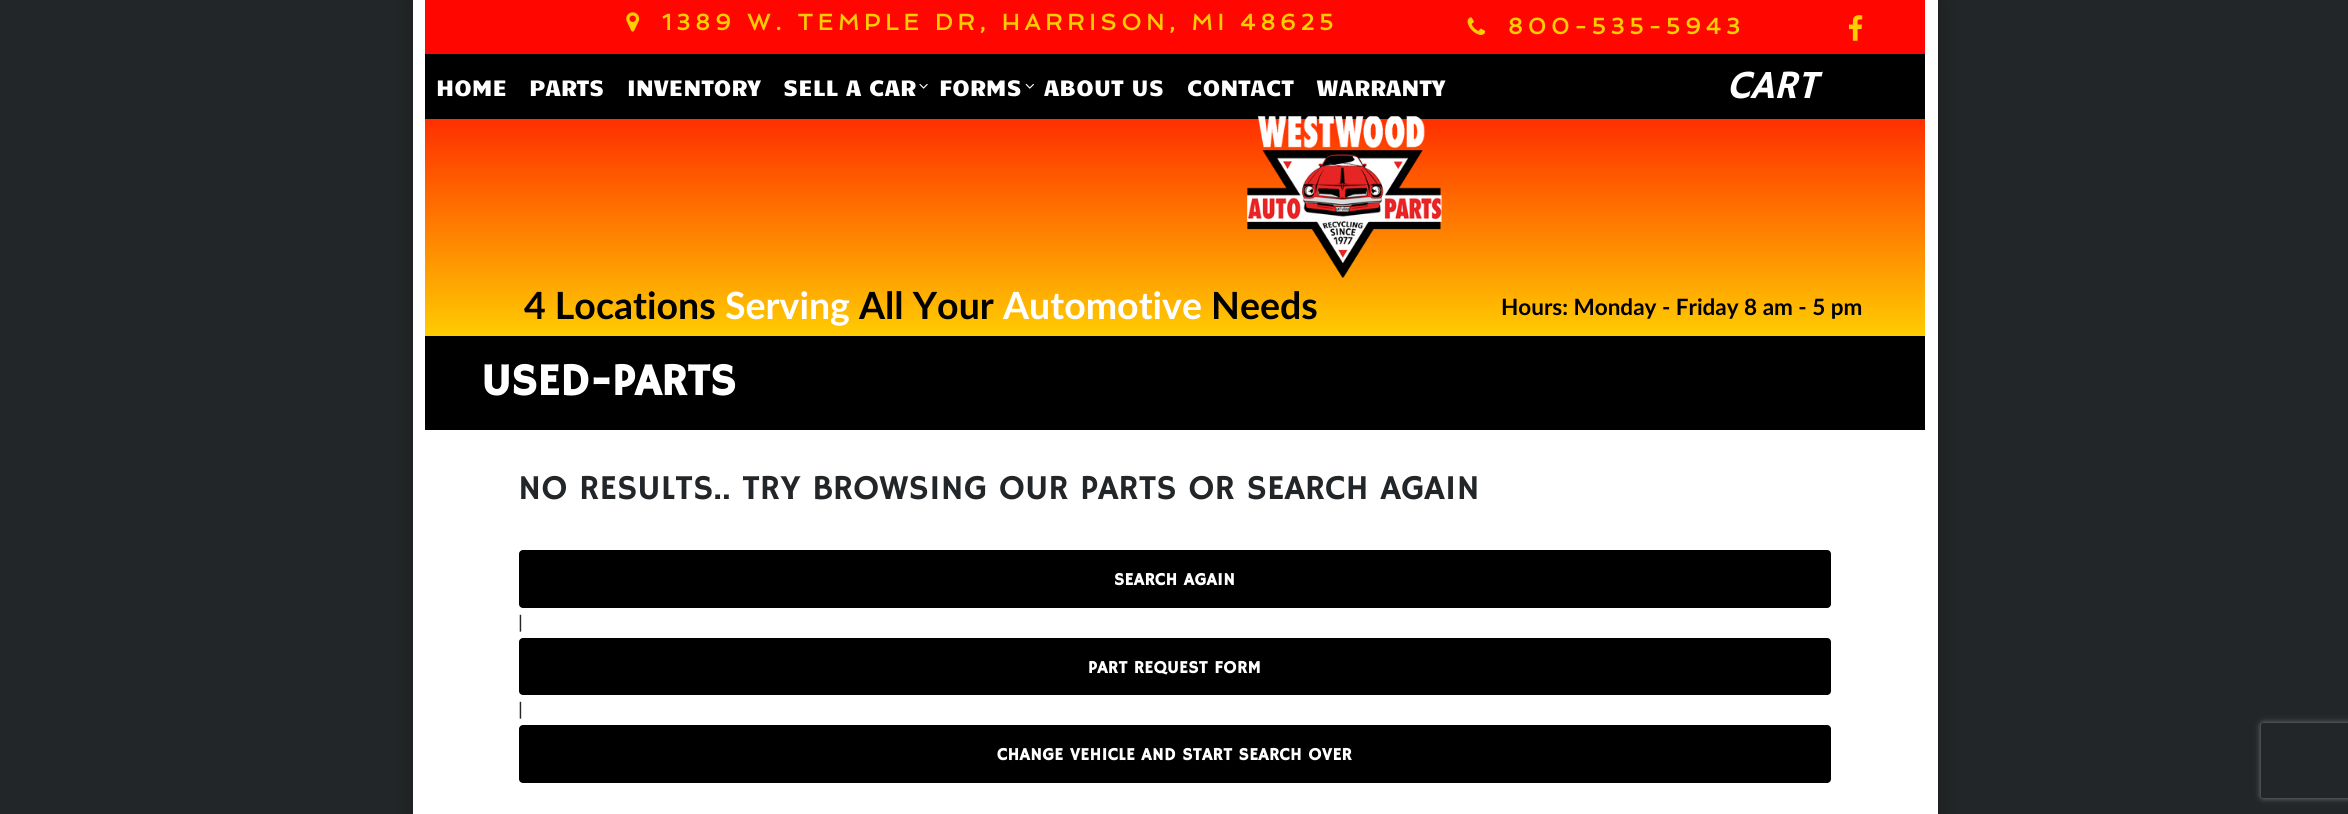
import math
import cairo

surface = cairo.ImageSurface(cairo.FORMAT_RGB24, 2348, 814)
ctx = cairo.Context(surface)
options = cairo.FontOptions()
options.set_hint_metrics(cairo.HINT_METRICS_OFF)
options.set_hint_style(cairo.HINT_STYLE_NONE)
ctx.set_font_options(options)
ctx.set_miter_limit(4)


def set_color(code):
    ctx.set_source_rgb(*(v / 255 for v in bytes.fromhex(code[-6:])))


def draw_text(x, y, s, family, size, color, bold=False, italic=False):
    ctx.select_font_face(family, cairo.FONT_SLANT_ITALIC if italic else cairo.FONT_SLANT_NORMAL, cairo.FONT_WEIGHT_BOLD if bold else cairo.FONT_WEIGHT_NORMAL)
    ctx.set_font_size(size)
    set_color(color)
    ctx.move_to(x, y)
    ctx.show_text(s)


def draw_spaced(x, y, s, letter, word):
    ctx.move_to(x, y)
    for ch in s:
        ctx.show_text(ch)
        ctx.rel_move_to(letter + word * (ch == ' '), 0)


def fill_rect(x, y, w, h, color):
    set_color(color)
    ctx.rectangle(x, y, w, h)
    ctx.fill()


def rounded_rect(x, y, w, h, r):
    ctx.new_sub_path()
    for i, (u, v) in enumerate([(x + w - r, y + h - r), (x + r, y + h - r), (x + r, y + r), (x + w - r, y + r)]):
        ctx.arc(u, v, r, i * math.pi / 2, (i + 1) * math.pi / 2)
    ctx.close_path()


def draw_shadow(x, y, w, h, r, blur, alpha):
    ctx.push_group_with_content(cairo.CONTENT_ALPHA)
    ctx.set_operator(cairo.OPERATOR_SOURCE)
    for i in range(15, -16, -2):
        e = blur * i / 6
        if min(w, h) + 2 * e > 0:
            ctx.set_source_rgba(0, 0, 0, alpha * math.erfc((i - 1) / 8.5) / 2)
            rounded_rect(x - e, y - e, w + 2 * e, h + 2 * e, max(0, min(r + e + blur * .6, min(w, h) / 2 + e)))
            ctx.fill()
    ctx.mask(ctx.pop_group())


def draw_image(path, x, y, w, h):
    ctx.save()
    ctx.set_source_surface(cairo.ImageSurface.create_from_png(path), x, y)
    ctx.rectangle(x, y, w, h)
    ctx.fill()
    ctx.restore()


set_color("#232628")
ctx.paint()
set_color("#000000")
draw_shadow(413, 0, 1525, 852, 0, 12.5, 0.25)
fill_rect(413, 0, 1525, 814, "#ffffff")
fill_rect(425, 0, 1500, 54, "#ff0700")
draw_image("assets/img1.png", 626, 12, 14, 20)
ctx.select_font_face("Spinnaker", cairo.FONT_SLANT_NORMAL, cairo.FONT_WEIGHT_BOLD)
ctx.set_font_size(22.5)
set_color("#ffcc01")
draw_spaced(662, 30, "1389 W. TEMPLE DR, HARRISON, MI 48625", 5, 0)
draw_image("assets/img2.png", 1467, 17, 19, 18)
draw_spaced(1508, 34, "800-535-5943", 5, 0)
draw_image("assets/img3.png", 1848, 15, 15, 26)
gradient = cairo.LinearGradient(1175, 54, 1175, 336)
gradient.add_color_stop_rgba(0, 1, 0, 0, 1)
gradient.add_color_stop_rgba(1, 1, 0.8, 0.004, 1)
ctx.set_source(gradient)
ctx.rectangle(425, 119, 1500, 217)
ctx.fill()
fill_rect(425, 54, 1500, 65, "#000000")
draw_text(436, 96, "HOME", "Candal", 22.5, "#ffffff")
draw_text(529, 96, "PARTS", "Candal", 22.5, "#ffffff")
draw_text(627, 96, "INVENTORY", "Candal", 22.5, "#ffffff")
draw_text(783, 96, "SELL A CAR", "Candal", 22.5, "#ffffff")
draw_image("assets/img4.png", 919, 83, 9, 6)
draw_text(939, 96, "FORMS", "Candal", 22.5, "#ffffff")
draw_image("assets/img5.png", 1025, 83, 9, 6)
draw_text(1044, 96, "ABOUT US", "Candal", 22.5, "#ffffff")
draw_text(1187, 96, "CONTACT", "Candal", 22.5, "#ffffff")
draw_text(1316, 96, "WARRANTY", "Candal", 22.5, "#ffffff")
draw_text(1727, 98, "CART", "Hammersmith One", 40, "#ffffff", italic=True)
draw_image("assets/img6.png", 1247, 116, 195, 162)
draw_text(524, 319, "4 Locations", "Lato", 37.5, "#000000", bold=True)
draw_text(725, 319, "Serving", "Lato", 37.5, "#ffffff", bold=True)
draw_text(859, 319, "All Your", "Lato", 37.5, "#000000", bold=True)
draw_text(1003, 319, "Automotive", "Lato", 37.5, "#ffffff", bold=True)
draw_text(1211, 319, "Needs", "Lato", 37.5, "#000000", bold=True)
draw_text(1501, 315, "Hours: Monday - Friday 8 am - 5 pm", "Lato", 22.5, "#000000", bold=True)
fill_rect(425, 336, 1500, 94, "#000000")
draw_text(481, 395, "USED-PARTS", "Hammersmith One", 45, "#ffffff", bold=True)
draw_text(518, 499, "NO RESULTS.. TRY BROWSING OUR PARTS OR SEARCH AGAIN", "Hammersmith One", 35, "#232628")
set_color("#000000")
rounded_rect(519, 550, 1312, 58, 4)
ctx.fill()
ctx.select_font_face("Hammersmith One", cairo.FONT_SLANT_NORMAL, cairo.FONT_WEIGHT_BOLD)
ctx.set_font_size(17.5)
set_color("#ffffff")
draw_spaced(1114, 585, "SEARCH AGAIN", 0.4, 0)
draw_text(518, 629, "|", "Roboto", 20, "#232628")
set_color("#000000")
rounded_rect(519, 638, 1312, 57, 4)
ctx.fill()
ctx.select_font_face("Hammersmith One", cairo.FONT_SLANT_NORMAL, cairo.FONT_WEIGHT_BOLD)
ctx.set_font_size(17.5)
set_color("#ffffff")
draw_spaced(1088, 673, "PART REQUEST FORM", 0.4, 0)
draw_text(518, 716, "|", "Roboto", 20, "#232628")
set_color("#000000")
rounded_rect(519, 725, 1312, 58, 4)
ctx.fill()
ctx.select_font_face("Hammersmith One", cairo.FONT_SLANT_NORMAL, cairo.FONT_WEIGHT_BOLD)
ctx.set_font_size(17.5)
set_color("#ffffff")
draw_spaced(997, 760, "CHANGE VEHICLE AND START SEARCH OVER", 0.4, 0)
ctx.save()
ctx.set_fill_rule(cairo.FILL_RULE_EVEN_ODD)
ctx.new_path()
ctx.move_to(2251, 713)
ctx.line_to(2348, 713)
ctx.line_to(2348, 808)
ctx.line_to(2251, 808)
ctx.close_path()
ctx.move_to(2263.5, 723)
ctx.line_to(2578.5, 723)
ctx.curve_to(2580, 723, 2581, 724, 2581, 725.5)
ctx.line_to(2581, 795.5)
ctx.curve_to(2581, 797, 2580, 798, 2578.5, 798)
ctx.line_to(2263.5, 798)
ctx.curve_to(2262, 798, 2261, 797, 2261, 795.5)
ctx.line_to(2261, 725.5)
ctx.curve_to(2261, 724, 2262, 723, 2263.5, 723)
ctx.close_path()
ctx.clip()
set_color("#808080")
draw_shadow(2261, 723, 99, 75, 2.5, 3, 1)
ctx.restore()
surface.write_to_png("output.png")
